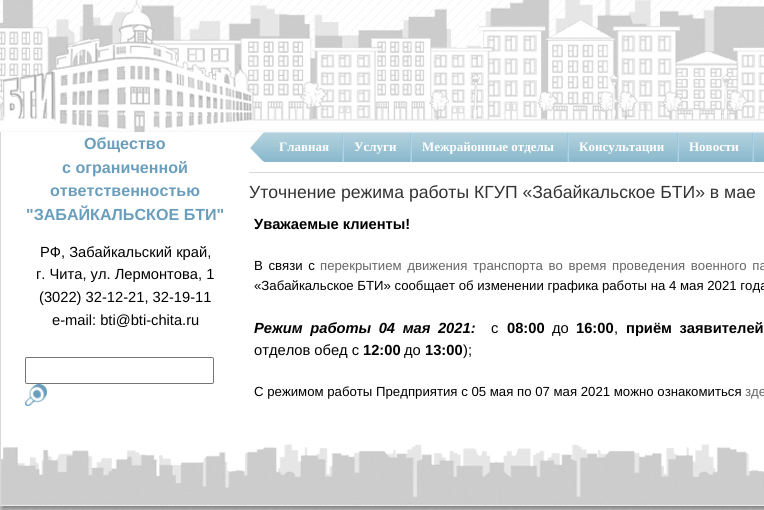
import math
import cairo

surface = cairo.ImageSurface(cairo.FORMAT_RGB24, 764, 510)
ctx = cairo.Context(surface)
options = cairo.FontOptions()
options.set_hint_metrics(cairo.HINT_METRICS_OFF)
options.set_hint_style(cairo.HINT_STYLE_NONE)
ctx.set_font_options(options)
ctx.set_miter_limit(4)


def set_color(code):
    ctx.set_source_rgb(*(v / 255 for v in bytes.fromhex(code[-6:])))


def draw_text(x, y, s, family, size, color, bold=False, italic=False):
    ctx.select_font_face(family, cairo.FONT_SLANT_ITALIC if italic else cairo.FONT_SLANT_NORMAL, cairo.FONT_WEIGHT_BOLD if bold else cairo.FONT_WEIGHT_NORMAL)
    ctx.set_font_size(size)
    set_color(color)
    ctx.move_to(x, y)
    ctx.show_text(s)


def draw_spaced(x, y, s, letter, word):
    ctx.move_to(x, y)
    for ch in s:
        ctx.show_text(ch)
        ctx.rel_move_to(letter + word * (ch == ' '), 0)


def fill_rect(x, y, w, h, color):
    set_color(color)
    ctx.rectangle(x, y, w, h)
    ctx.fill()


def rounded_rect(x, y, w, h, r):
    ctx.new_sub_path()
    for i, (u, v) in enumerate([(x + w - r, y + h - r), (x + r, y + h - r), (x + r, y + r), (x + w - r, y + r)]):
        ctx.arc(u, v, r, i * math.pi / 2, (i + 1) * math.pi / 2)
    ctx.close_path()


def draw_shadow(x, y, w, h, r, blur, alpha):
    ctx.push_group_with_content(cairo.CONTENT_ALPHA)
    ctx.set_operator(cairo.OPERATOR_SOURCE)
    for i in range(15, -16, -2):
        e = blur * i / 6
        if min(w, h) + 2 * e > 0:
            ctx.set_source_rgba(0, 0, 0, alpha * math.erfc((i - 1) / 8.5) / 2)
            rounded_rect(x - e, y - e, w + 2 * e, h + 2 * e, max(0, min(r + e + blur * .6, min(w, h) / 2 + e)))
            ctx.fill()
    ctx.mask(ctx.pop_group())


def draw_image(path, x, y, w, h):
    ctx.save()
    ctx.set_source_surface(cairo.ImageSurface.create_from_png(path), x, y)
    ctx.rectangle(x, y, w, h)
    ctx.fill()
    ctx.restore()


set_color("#ffffff")
ctx.paint()
draw_image("assets/img1.png", 0, 0, 764, 510)
draw_image("assets/img2.png", 0, 0, 764, 132)
set_color("#000000")
draw_shadow(0, 137, 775, 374, 0, 3.5, 0.5)
fill_rect(1, 132, 763, 312, "#ffffff")
fill_rect(0, 132, 1, 374, "#d8d8d8")
draw_text(84, 149, "Общество", "Liberation Sans", 16.1, "#699ebc", bold=True)
draw_text(62, 173, "с ограниченной", "Liberation Sans", 16.1, "#699ebc", bold=True)
draw_text(50, 196, "ответственностью", "Liberation Sans", 16.1, "#699ebc", bold=True)
draw_text(26, 220, "\"ЗАБАЙКАЛЬСКОЕ БТИ\"", "Liberation Sans", 16.1, "#699ebc", bold=True)
draw_text(40, 257, "РФ, Забайкальский край,", "Liberation Sans", 14.7, "#000000")
draw_text(36, 279, "г. Чита, ул. Лермонтова, 1", "Liberation Sans", 14.7, "#000000")
draw_text(39, 302, "(3022) 32-12-21, 32-19-11", "Liberation Sans", 14.7, "#000000")
draw_text(52, 325, "e-mail: bti@bti-chita.ru", "Liberation Sans", 14.7, "#000000")
rounded_rect(25.5, 357.5, 188, 26, 1.5)
set_color("#767676")
ctx.set_line_width(1)
ctx.stroke()
draw_image("assets/img3.png", 25, 384, 22, 22)
draw_image("assets/img4.png", 249, 132, 15, 30)
draw_image("assets/img5.png", 264, 132, 500, 30)
fill_rect(249, 172, 515, 1, "#d8d8d8")
draw_image("assets/img6.png", 342, 133, 2, 29)
draw_text(279, 151, "Главная", "Liberation Serif", 13, "#ffffff", bold=True)
draw_image("assets/img6.png", 410, 133, 2, 29)
draw_text(354, 151, "Услуги", "Liberation Serif", 13, "#ffffff", bold=True)
draw_image("assets/img6.png", 567, 133, 2, 29)
draw_text(422, 151, "Межрайонные отделы", "Liberation Serif", 13, "#ffffff", bold=True)
draw_image("assets/img6.png", 677, 133, 2, 29)
draw_text(579, 151, "Консультации", "Liberation Serif", 13, "#ffffff", bold=True)
draw_image("assets/img6.png", 752, 133, 2, 29)
draw_text(689, 151, "Новости", "Liberation Serif", 13, "#ffffff", bold=True)
draw_text(249, 198, "Уточнение режима работы КГУП «Забайкальское БТИ» в мае", "Liberation Sans", 17.6, "#333333")
draw_text(254, 229, "Уважаемые клиенты!", "Liberation Sans", 14.7, "#000000", bold=True)
ctx.select_font_face("Liberation Sans")
ctx.set_font_size(13.2)
draw_spaced(254, 270, "В связи с", 0, 2)
set_color("#666666")
draw_spaced(320, 270, "перекрытием движения транспорта во время проведения военного па", 0, 2)
draw_text(254, 290, "«Забайкальское БТИ» сообщает об изменении графика работы на 4 мая 2021 года", "Liberation Sans", 13.2, "#000000")
ctx.select_font_face("Liberation Sans", cairo.FONT_SLANT_ITALIC, cairo.FONT_WEIGHT_BOLD)
ctx.set_font_size(14.7)
draw_spaced(254, 333, "Режим работы 04 мая 2021:", 0, 3.5)
draw_text(491, 333, "с", "Liberation Sans", 14.7, "#000000")
draw_text(507, 333, "08:00", "Liberation Sans", 14.7, "#000000", bold=True)
draw_text(552, 333, "до", "Liberation Sans", 14.7, "#000000")
draw_text(576, 333, "16:00", "Liberation Sans", 14.7, "#000000", bold=True)
draw_text(614, 333, ",", "Liberation Sans", 14.7, "#000000")
ctx.select_font_face("Liberation Sans", cairo.FONT_SLANT_NORMAL, cairo.FONT_WEIGHT_BOLD)
draw_spaced(626, 333, "приём заявителей", 0, 3.5)
draw_text(254, 355, "отделов обед с", "Liberation Sans", 14.7, "#000000")
draw_text(363, 355, "12:00", "Liberation Sans", 14.7, "#000000", bold=True)
draw_text(404, 355, "до", "Liberation Sans", 14.7, "#000000")
draw_text(425, 355, "13:00", "Liberation Sans", 14.7, "#000000", bold=True)
draw_text(463, 355, ");", "Liberation Sans", 14.7, "#000000")
draw_text(254, 396, "С режимом работы Предприятия с 05 мая по 07 мая 2021 можно ознакомиться", "Liberation Sans", 13.2, "#000000")
draw_text(745, 396, "зде", "Liberation Sans", 13.2, "#666666")
draw_image("assets/img7.png", 1, 444, 763, 62)
surface.write_to_png("output.png")
